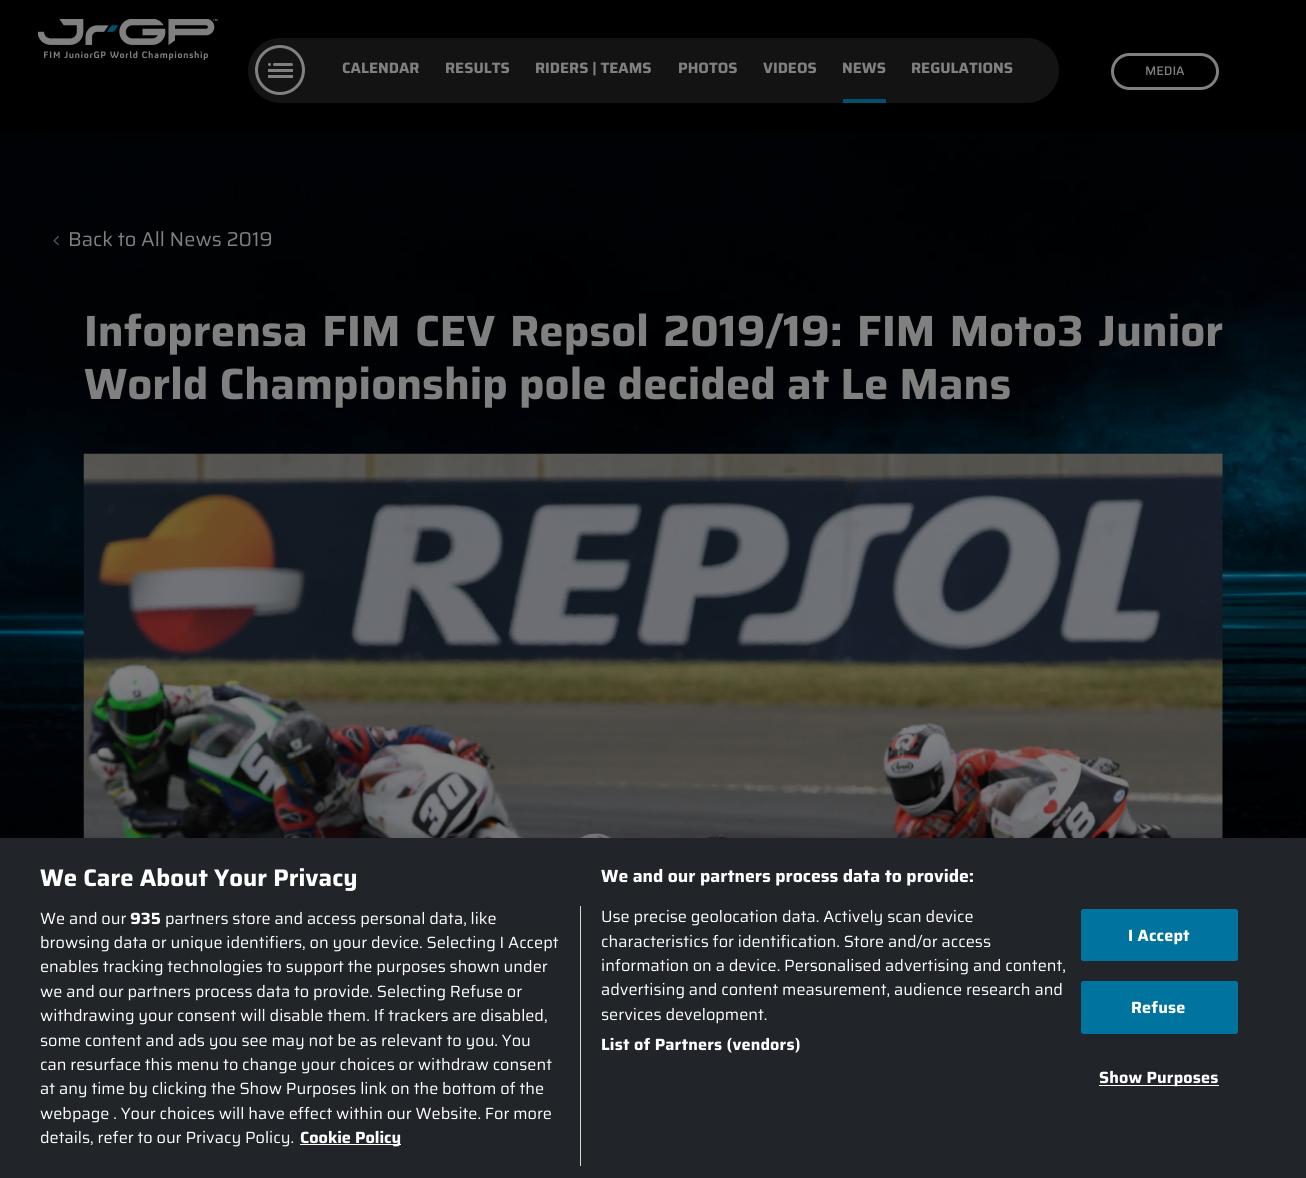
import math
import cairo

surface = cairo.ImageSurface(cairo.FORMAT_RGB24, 1306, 1178)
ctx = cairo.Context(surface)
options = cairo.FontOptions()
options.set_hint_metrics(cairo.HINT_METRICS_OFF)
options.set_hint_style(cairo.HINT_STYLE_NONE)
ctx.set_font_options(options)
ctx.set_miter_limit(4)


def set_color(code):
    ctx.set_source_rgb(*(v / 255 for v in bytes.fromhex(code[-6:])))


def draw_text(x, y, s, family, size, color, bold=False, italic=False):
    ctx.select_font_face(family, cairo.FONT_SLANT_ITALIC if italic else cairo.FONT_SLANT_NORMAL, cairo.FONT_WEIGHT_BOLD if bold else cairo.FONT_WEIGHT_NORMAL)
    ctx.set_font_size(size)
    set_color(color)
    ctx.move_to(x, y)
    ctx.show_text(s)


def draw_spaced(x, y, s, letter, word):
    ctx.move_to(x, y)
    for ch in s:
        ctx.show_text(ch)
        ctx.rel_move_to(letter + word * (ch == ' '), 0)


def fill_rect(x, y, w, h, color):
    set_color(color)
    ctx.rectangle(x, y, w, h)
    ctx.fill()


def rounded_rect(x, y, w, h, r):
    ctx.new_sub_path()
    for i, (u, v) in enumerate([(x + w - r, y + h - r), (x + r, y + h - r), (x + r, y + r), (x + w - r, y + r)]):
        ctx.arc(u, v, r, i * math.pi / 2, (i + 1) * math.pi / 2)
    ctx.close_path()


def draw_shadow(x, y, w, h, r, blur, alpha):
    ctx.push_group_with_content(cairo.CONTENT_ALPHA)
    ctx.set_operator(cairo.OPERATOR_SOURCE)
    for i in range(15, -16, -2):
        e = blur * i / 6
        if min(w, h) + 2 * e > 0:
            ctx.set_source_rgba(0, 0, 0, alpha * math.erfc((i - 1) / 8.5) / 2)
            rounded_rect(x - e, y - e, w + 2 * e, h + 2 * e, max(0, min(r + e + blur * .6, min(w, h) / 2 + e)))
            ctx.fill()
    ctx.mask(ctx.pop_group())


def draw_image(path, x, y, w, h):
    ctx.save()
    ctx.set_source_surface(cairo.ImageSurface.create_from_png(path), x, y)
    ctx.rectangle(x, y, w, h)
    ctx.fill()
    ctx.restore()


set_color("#000000")
ctx.paint()
draw_image("assets/img1.png", 38, 19, 180, 41)
set_color("#131313")
rounded_rect(248, 38, 811, 65, 32.5)
ctx.fill()
ctx.arc(280, 70, 23.5, 0, 2 * math.pi)
set_color("#808080")
ctx.set_line_width(3)
ctx.stroke()
ctx.arc(269.5, 64.5, 1.5, 0, 2 * math.pi)
ctx.fill()
rounded_rect(273, 63, 20, 3, 1.5)
ctx.fill()
fill_rect(268, 69, 25, 3, "#808080")
fill_rect(268, 75, 25, 3, "#808080")
draw_text(342, 73, "CALENDAR", "Saira", 15, "#808080", bold=True)
draw_text(445, 73, "RESULTS", "Saira", 15, "#808080", bold=True)
draw_text(535, 73, "RIDERS | TEAMS", "Saira", 15, "#808080", bold=True)
draw_text(678, 73, "PHOTOS", "Saira", 15, "#808080", bold=True)
draw_text(763, 73, "VIDEOS", "Saira", 15, "#808080", bold=True)
draw_text(842, 73, "NEWS", "Saira", 15, "#808080", bold=True)
fill_rect(843, 99, 43, 4, "#005270")
draw_text(911, 73, "REGULATIONS", "Saira", 15, "#808080", bold=True)
rounded_rect(1112.5, 54.5, 105, 34, 17)
ctx.stroke()
draw_text(1145, 75, "MEDIA", "Saira Medium", 12.5, "#808080")
draw_image("assets/img2.png", 0, 131, 1306, 707)
draw_image("assets/img3.png", 53, 236, 6, 9)
draw_text(68, 246, "Back to All News 2019", "Saira", 20, "#808080")
ctx.select_font_face("Saira", cairo.FONT_SLANT_NORMAL, cairo.FONT_WEIGHT_BOLD)
ctx.set_font_size(43.75)
draw_spaced(84, 346, "Infoprensa FIM CEV Repsol 2019/19:", 0, 3.5)
draw_spaced(857, 346, "FIM Moto3 Junior", 0, 3.5)
draw_text(84, 399, "World Championship pole decided at Le Mans", "Saira", 43.75, "#808080", bold=True)
draw_image("assets/img4.png", 83, 453, 1140, 385)
set_color("#000000")
draw_shadow(0, 838, 1306, 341, 0, 11, 0.2)
fill_rect(0, 838, 1306, 340, "#212529")
draw_text(40, 886, "We Care About Your Privacy", "Saira", 24, "#ffffff", bold=True)
draw_text(601, 882, "We and our partners process data to provide:", "Saira", 17.6, "#ffffff", bold=True)
draw_text(601, 922, "Use precise geolocation data. Actively scan device", "Saira", 16.25, "#ffffff")
draw_text(601, 947, "characteristics for identification. Store and/or access", "Saira", 16.25, "#ffffff")
draw_text(601, 971, "information on a device. Personalised advertising and content,", "Saira", 16.25, "#ffffff")
draw_text(601, 995, "advertising and content measurement, audience research and", "Saira", 16.25, "#ffffff")
draw_text(601, 1020, "services development.", "Saira", 16.25, "#ffffff")
ctx.select_font_face("Saira", cairo.FONT_SLANT_NORMAL, cairo.FONT_WEIGHT_BOLD)
draw_spaced(601, 1050, "List of Partners (vendors)", 0.15, 0)
fill_rect(580, 906, 1, 260, "#d8d8d8")
draw_text(40, 924, "We and our", "Saira", 16.25, "#ffffff")
draw_text(130, 924, "935", "Saira", 16.25, "#ffffff", bold=True)
draw_text(165, 924, "partners store and access personal data, like", "Saira", 16.25, "#ffffff")
draw_text(40, 948, "browsing data or unique identifiers, on your device. Selecting I Accept", "Saira", 16.25, "#ffffff")
draw_text(40, 972, "enables tracking technologies to support the purposes shown under", "Saira", 16.25, "#ffffff")
draw_text(40, 997, "we and our partners process data to provide. Selecting Refuse or", "Saira", 16.25, "#ffffff")
draw_text(40, 1021, "withdrawing your consent will disable them. If trackers are disabled,", "Saira", 16.25, "#ffffff")
draw_text(40, 1046, "some content and ads you see may not be as relevant to you. You", "Saira", 16.25, "#ffffff")
draw_text(40, 1070, "can resurface this menu to change your choices or withdraw consent", "Saira", 16.25, "#ffffff")
draw_text(40, 1094, "at any time by clicking the Show Purposes link on the bottom of the", "Saira", 16.25, "#ffffff")
draw_text(40, 1119, "webpage . Your choices will have effect within our Website. For more", "Saira", 16.25, "#ffffff")
draw_text(40, 1143, "details, refer to our Privacy Policy.", "Saira", 16.25, "#ffffff")
fill_rect(300, 1144, 101, 1, "#ffffff")
draw_text(300, 1143, "Cookie Policy", "Saira", 16.25, "#ffffff", bold=True)
set_color("#00749e")
rounded_rect(1081.5, 909.5, 156, 51, 2)
ctx.fill_preserve()
ctx.set_line_width(1)
ctx.stroke()
set_color("#ffffff")
draw_spaced(1128, 941, "I Accept", 0.15, 0)
set_color("#00749e")
rounded_rect(1081.5, 981.5, 156, 52, 2)
ctx.fill_preserve()
ctx.stroke()
set_color("#ffffff")
draw_spaced(1131, 1013, "Refuse", 0.15, 0)
fill_rect(1099, 1085, 120, 1, "#ffffff")
draw_spaced(1099, 1083, "Show Purposes", 0.15, 0)
surface.write_to_png("output.png")
